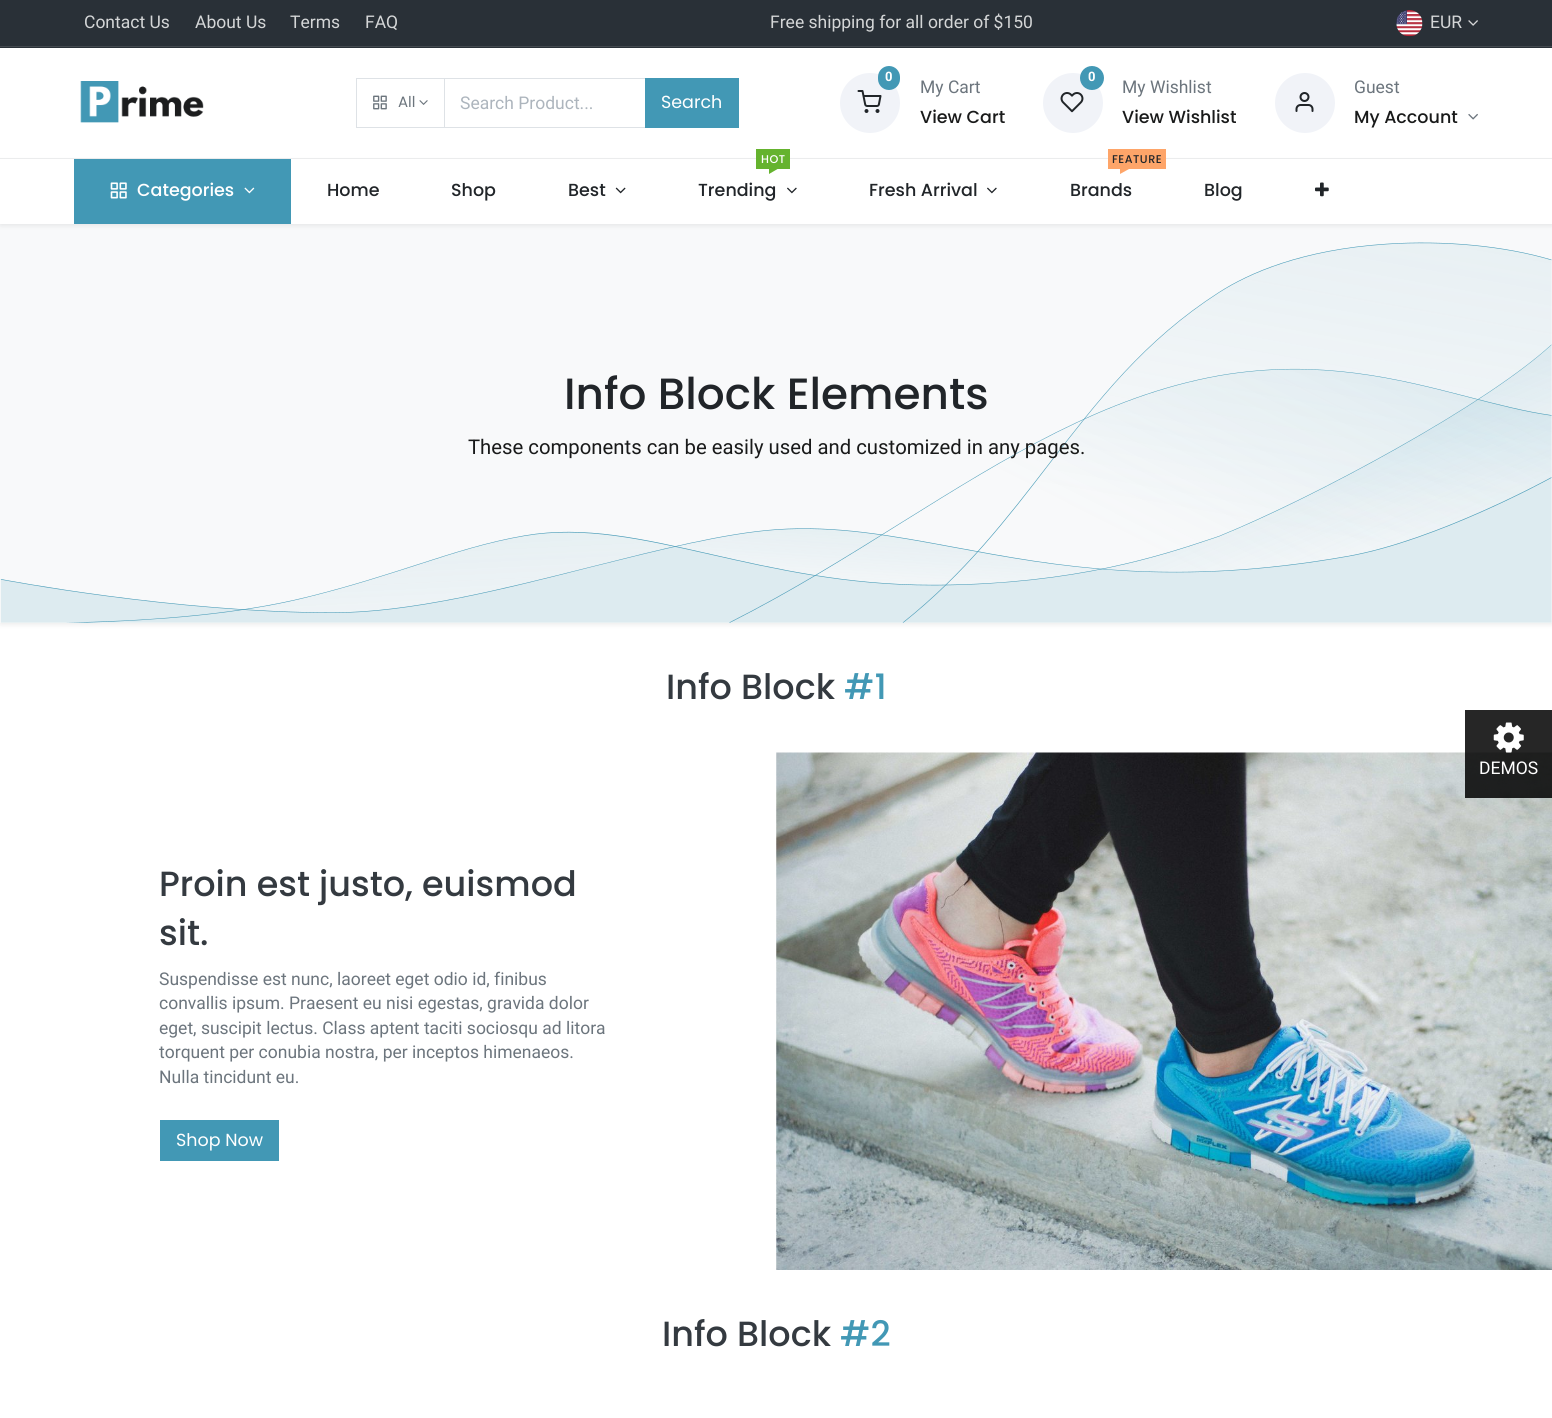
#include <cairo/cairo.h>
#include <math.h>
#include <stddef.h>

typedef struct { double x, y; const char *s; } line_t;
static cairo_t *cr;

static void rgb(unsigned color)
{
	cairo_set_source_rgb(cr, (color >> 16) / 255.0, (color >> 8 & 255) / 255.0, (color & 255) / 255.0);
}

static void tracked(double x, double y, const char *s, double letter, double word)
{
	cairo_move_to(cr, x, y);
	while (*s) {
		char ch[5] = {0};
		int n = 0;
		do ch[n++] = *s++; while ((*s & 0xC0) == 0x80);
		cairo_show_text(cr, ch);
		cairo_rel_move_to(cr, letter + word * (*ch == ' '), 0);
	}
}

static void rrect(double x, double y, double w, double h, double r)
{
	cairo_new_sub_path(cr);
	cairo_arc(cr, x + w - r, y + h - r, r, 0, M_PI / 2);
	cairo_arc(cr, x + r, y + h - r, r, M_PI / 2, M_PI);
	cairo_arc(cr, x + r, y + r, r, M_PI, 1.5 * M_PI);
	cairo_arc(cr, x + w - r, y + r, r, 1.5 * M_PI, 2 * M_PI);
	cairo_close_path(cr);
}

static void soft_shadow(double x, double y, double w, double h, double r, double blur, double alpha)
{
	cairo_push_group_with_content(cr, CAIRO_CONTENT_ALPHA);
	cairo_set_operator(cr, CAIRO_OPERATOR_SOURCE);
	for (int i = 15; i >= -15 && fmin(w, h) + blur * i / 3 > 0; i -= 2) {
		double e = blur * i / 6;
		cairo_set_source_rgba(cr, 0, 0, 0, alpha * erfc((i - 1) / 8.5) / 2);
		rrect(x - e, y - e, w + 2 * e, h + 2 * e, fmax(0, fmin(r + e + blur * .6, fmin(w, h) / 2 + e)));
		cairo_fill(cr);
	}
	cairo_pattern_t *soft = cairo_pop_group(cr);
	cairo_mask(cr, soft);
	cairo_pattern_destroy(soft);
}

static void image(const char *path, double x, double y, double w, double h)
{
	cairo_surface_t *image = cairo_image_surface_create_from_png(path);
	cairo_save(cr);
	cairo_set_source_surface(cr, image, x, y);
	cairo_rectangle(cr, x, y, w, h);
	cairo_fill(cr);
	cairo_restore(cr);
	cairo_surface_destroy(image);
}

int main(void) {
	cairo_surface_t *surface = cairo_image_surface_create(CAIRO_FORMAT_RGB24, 1552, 1418);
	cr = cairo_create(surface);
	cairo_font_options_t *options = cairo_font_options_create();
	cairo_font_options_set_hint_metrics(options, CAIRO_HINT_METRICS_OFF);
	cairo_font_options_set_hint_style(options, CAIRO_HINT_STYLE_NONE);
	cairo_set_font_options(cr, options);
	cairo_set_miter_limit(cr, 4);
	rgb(0xffffff);
	cairo_paint(cr);
	rgb(0x293037);
	cairo_rectangle(cr, 0, 0, 1552, 48);
	cairo_fill(cr);
	rgb(0x43494f);
	cairo_rectangle(cr, 0, 46, 1552, 1);
	cairo_fill(cr);
	image("img/1.png", 1396, 10, 27, 27);
	image("img/2.png", 1468, 20, 10, 6);
	rgb(0xedeeef);
	cairo_rectangle(cr, 0, 158, 1552, 1);
	cairo_fill(cr);
	image("img/3.png", 80, 81, 124, 42);
	cairo_rectangle(cr, 444.5, 78.5, 201, 49);
	rgb(0xdee2e6);
	cairo_set_line_width(cr, 1);
	cairo_stroke(cr);
	cairo_rectangle(cr, 356.5, 78.5, 88, 49);
	cairo_stroke(cr);
	image("img/4.png", 373, 95, 14, 15);
	image("img/5.png", 419, 100, 9, 5);
	rgb(0x4298b5);
	cairo_rectangle(cr, 645, 78, 94, 50);
	cairo_fill(cr);
	rgb(0xf1f3f8);
	cairo_arc(cr, 870, 103, 30, 0, 2 * M_PI);
	cairo_fill(cr);
	rgb(0x4298b5);
	rrect(878, 66, 22, 24, 11);
	cairo_fill(cr);
	image("img/6.png", 857, 90, 25, 23);
	rgb(0xf1f3f8);
	cairo_arc(cr, 1073, 103, 30, 0, 2 * M_PI);
	cairo_fill(cr);
	rgb(0x4298b5);
	cairo_arc(cr, 1092, 78, 12, 0, 2 * M_PI);
	cairo_fill(cr);
	image("img/7.png", 1060, 92, 24, 21);
	rgb(0xf1f3f8);
	cairo_arc(cr, 1305, 103, 30, 0, 2 * M_PI);
	cairo_fill(cr);
	image("img/8.png", 1295, 92, 19, 20);
	image("img/9.png", 1468, 113, 10, 7);
	rgb(0x000000);
	soft_shadow(0, 226, 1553, 399, 0, 2.5, 0.07);
	rgb(0xf8f9fa);
	cairo_rectangle(cr, 0, 224, 1552, 399);
	cairo_fill(cr);
	rgb(0x000000);
	soft_shadow(0, 161, 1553, 65, 0, 2.5, 0.07);
	rgb(0xffffff);
	cairo_rectangle(cr, 0, 159, 1552, 65);
	cairo_fill(cr);
	rgb(0x4298b5);
	cairo_rectangle(cr, 74, 159, 217, 65);
	cairo_fill(cr);
	image("img/10.png", 110, 182, 17, 17);
	image("img/11.png", 244, 187, 11, 7);
	image("img/12.png", 615, 187, 11, 7);
	rgb(0x65b32e);
	cairo_rectangle(cr, 756, 149, 34, 20);
	cairo_fill(cr);
	cairo_new_path(cr);
	cairo_move_to(cr, 769, 169);
	cairo_line_to(cr, 777.5, 169);
	cairo_line_to(cr, 769, 174);
	cairo_close_path(cr);
	cairo_fill(cr);
	image("img/13.png", 787, 187, 10, 7);
	image("img/13.png", 987, 187, 10, 7);
	rgb(0xfea569);
	cairo_rectangle(cr, 1108, 149, 58, 20);
	cairo_fill(cr);
	cairo_new_path(cr);
	cairo_move_to(cr, 1120, 169);
	cairo_line_to(cr, 1129, 169);
	cairo_line_to(cr, 1120, 174);
	cairo_close_path(cr);
	cairo_fill(cr);
	image("img/14.png", 1315, 182, 14, 15);
	image("img/15.png", 0, 242, 1552, 381);
	rgb(0x4298b5);
	cairo_rectangle(cr, 160, 1120, 119, 41);
	cairo_fill(cr);
	image("img/16.png", 776, 752, 776, 518);
	cairo_set_source_rgba(cr, 0, 0, 0, 0.85);
	cairo_rectangle(cr, 1465, 710, 87, 88);
	cairo_fill(cr);
	image("img/17.png", 1493, 722, 31, 31);
	cairo_select_font_face(cr, "Roboto", CAIRO_FONT_SLANT_NORMAL, CAIRO_FONT_WEIGHT_NORMAL);
	cairo_set_font_size(cr, 17.5);
	rgb(0xd4d6d7);
	{
		static const line_t items[] = {
			{84, 28, "Contact Us"},
			{195, 28, "About Us"},
			{290, 28, "Terms"},
			{365, 28, "FAQ"},
			{770, 28, "Free shipping for all order of $150"},
			{1430, 28, "EUR"},
		};
		for (size_t i = 0; i < sizeof items / sizeof *items; i++) {
			cairo_move_to(cr, items[i].x, items[i].y);
			cairo_show_text(cr, items[i].s);
		}
	}
	cairo_select_font_face(cr, "Poppins", CAIRO_FONT_SLANT_NORMAL, CAIRO_FONT_WEIGHT_NORMAL);
	cairo_set_font_size(cr, 15);
	rgb(0x6c757d);
	cairo_move_to(cr, 398, 107);
	cairo_show_text(cr, "All");
	cairo_select_font_face(cr, "Roboto", CAIRO_FONT_SLANT_NORMAL, CAIRO_FONT_WEIGHT_NORMAL);
	cairo_set_font_size(cr, 17.5);
	rgb(0xadb5bd);
	cairo_move_to(cr, 460, 109);
	cairo_show_text(cr, "Search Product...");
	cairo_select_font_face(cr, "Poppins", CAIRO_FONT_SLANT_NORMAL, CAIRO_FONT_WEIGHT_NORMAL);
	rgb(0xffffff);
	cairo_move_to(cr, 661, 108);
	cairo_show_text(cr, "Search");
	cairo_select_font_face(cr, "Roboto", CAIRO_FONT_SLANT_NORMAL, CAIRO_FONT_WEIGHT_BOLD);
	cairo_set_font_size(cr, 13);
	cairo_move_to(cr, 885, 81);
	cairo_show_text(cr, "0");
	cairo_select_font_face(cr, "Roboto", CAIRO_FONT_SLANT_NORMAL, CAIRO_FONT_WEIGHT_NORMAL);
	cairo_set_font_size(cr, 17.5);
	rgb(0x6c757d);
	cairo_move_to(cr, 920, 93);
	cairo_show_text(cr, "My Cart");
	cairo_select_font_face(cr, "Poppins Medium", CAIRO_FONT_SLANT_NORMAL, CAIRO_FONT_WEIGHT_NORMAL);
	rgb(0x191a1a);
	cairo_move_to(cr, 920, 123);
	cairo_show_text(cr, "View Cart");
	cairo_select_font_face(cr, "Roboto", CAIRO_FONT_SLANT_NORMAL, CAIRO_FONT_WEIGHT_BOLD);
	cairo_set_font_size(cr, 13);
	rgb(0xffffff);
	cairo_move_to(cr, 1088, 81);
	cairo_show_text(cr, "0");
	cairo_select_font_face(cr, "Roboto", CAIRO_FONT_SLANT_NORMAL, CAIRO_FONT_WEIGHT_NORMAL);
	cairo_set_font_size(cr, 17.5);
	rgb(0x6c757d);
	cairo_move_to(cr, 1122, 93);
	cairo_show_text(cr, "My Wishlist");
	cairo_select_font_face(cr, "Poppins Medium", CAIRO_FONT_SLANT_NORMAL, CAIRO_FONT_WEIGHT_NORMAL);
	rgb(0x191a1a);
	cairo_move_to(cr, 1122, 123);
	cairo_show_text(cr, "View Wishlist");
	cairo_select_font_face(cr, "Roboto", CAIRO_FONT_SLANT_NORMAL, CAIRO_FONT_WEIGHT_NORMAL);
	rgb(0x6c757d);
	cairo_move_to(cr, 1354, 93);
	cairo_show_text(cr, "Guest");
	cairo_select_font_face(cr, "Poppins Medium", CAIRO_FONT_SLANT_NORMAL, CAIRO_FONT_WEIGHT_NORMAL);
	rgb(0x191a1a);
	cairo_move_to(cr, 1354, 123);
	cairo_show_text(cr, "My Account");
	rgb(0xffffff);
	cairo_move_to(cr, 137, 196);
	cairo_show_text(cr, "Categories");
	rgb(0x212529);
	{
		static const line_t items[] = {
			{327, 196, "Home"},
			{451, 196, "Shop"},
			{568, 196, "Best"},
		};
		for (size_t i = 0; i < sizeof items / sizeof *items; i++) {
			cairo_move_to(cr, items[i].x, items[i].y);
			cairo_show_text(cr, items[i].s);
		}
	}
	cairo_set_font_size(cr, 11.25);
	rgb(0xffffff);
	tracked(761, 163, "HOT", 0.5, 0);
	cairo_set_font_size(cr, 17.5);
	rgb(0x212529);
	cairo_move_to(cr, 698, 196);
	cairo_show_text(cr, "Trending");
	cairo_move_to(cr, 869, 196);
	cairo_show_text(cr, "Fresh Arrival");
	cairo_set_font_size(cr, 11.25);
	tracked(1112, 163, "FEATURE", 0.5, 0);
	cairo_set_font_size(cr, 17.5);
	cairo_move_to(cr, 1070, 196);
	cairo_show_text(cr, "Brands");
	cairo_move_to(cr, 1204, 196);
	cairo_show_text(cr, "Blog");
	cairo_set_font_size(cr, 43.75);
	cairo_move_to(cr, 564, 409);
	cairo_show_text(cr, "Info Block Elements");
	cairo_select_font_face(cr, "Roboto", CAIRO_FONT_SLANT_NORMAL, CAIRO_FONT_WEIGHT_NORMAL);
	cairo_set_font_size(cr, 20.3);
	rgb(0x191a1a);
	cairo_move_to(cr, 468, 454);
	cairo_show_text(cr, "These components can be easily used and customized in any pages.");
	cairo_select_font_face(cr, "Poppins Medium", CAIRO_FONT_SLANT_NORMAL, CAIRO_FONT_WEIGHT_NORMAL);
	cairo_set_font_size(cr, 35);
	rgb(0x343a40);
	cairo_move_to(cr, 666, 699);
	cairo_show_text(cr, "Info Block");
	rgb(0x4298b5);
	cairo_move_to(cr, 844, 699);
	cairo_show_text(cr, "#1");
	rgb(0x343a40);
	cairo_move_to(cr, 159, 896);
	cairo_show_text(cr, "Proin est justo, euismod");
	cairo_move_to(cr, 159, 945);
	cairo_show_text(cr, "sit.");
	cairo_select_font_face(cr, "Roboto", CAIRO_FONT_SLANT_NORMAL, CAIRO_FONT_WEIGHT_NORMAL);
	cairo_set_font_size(cr, 17.5);
	rgb(0x6c757d);
	{
		static const line_t items[] = {
			{159, 985, "Suspendisse est nunc, laoreet eget odio id, finibus"},
			{159, 1009, "convallis ipsum. Praesent eu nisi egestas, gravida dolor"},
			{159, 1034, "eget, suscipit lectus. Class aptent taciti sociosqu ad litora"},
			{159, 1058, "torquent per conubia nostra, per inceptos himenaeos."},
			{159, 1083, "Nulla tincidunt eu."},
		};
		for (size_t i = 0; i < sizeof items / sizeof *items; i++) {
			cairo_move_to(cr, items[i].x, items[i].y);
			cairo_show_text(cr, items[i].s);
		}
	}
	cairo_select_font_face(cr, "Poppins", CAIRO_FONT_SLANT_NORMAL, CAIRO_FONT_WEIGHT_NORMAL);
	rgb(0xffffff);
	cairo_move_to(cr, 176, 1146);
	cairo_show_text(cr, "Shop Now");
	cairo_select_font_face(cr, "Poppins Medium", CAIRO_FONT_SLANT_NORMAL, CAIRO_FONT_WEIGHT_NORMAL);
	cairo_set_font_size(cr, 35);
	rgb(0x343a40);
	cairo_move_to(cr, 662, 1346);
	cairo_show_text(cr, "Info Block");
	rgb(0x4298b5);
	cairo_move_to(cr, 840, 1346);
	cairo_show_text(cr, "#2");
	cairo_select_font_face(cr, "Roboto", CAIRO_FONT_SLANT_NORMAL, CAIRO_FONT_WEIGHT_NORMAL);
	cairo_set_font_size(cr, 17.5);
	rgb(0xffffff);
	cairo_move_to(cr, 1479, 774);
	cairo_show_text(cr, "DEMOS");
	cairo_surface_write_to_png(surface, "page.png");
	cairo_font_options_destroy(options);
	cairo_destroy(cr);
	cairo_surface_destroy(surface);
	return 0;
}
